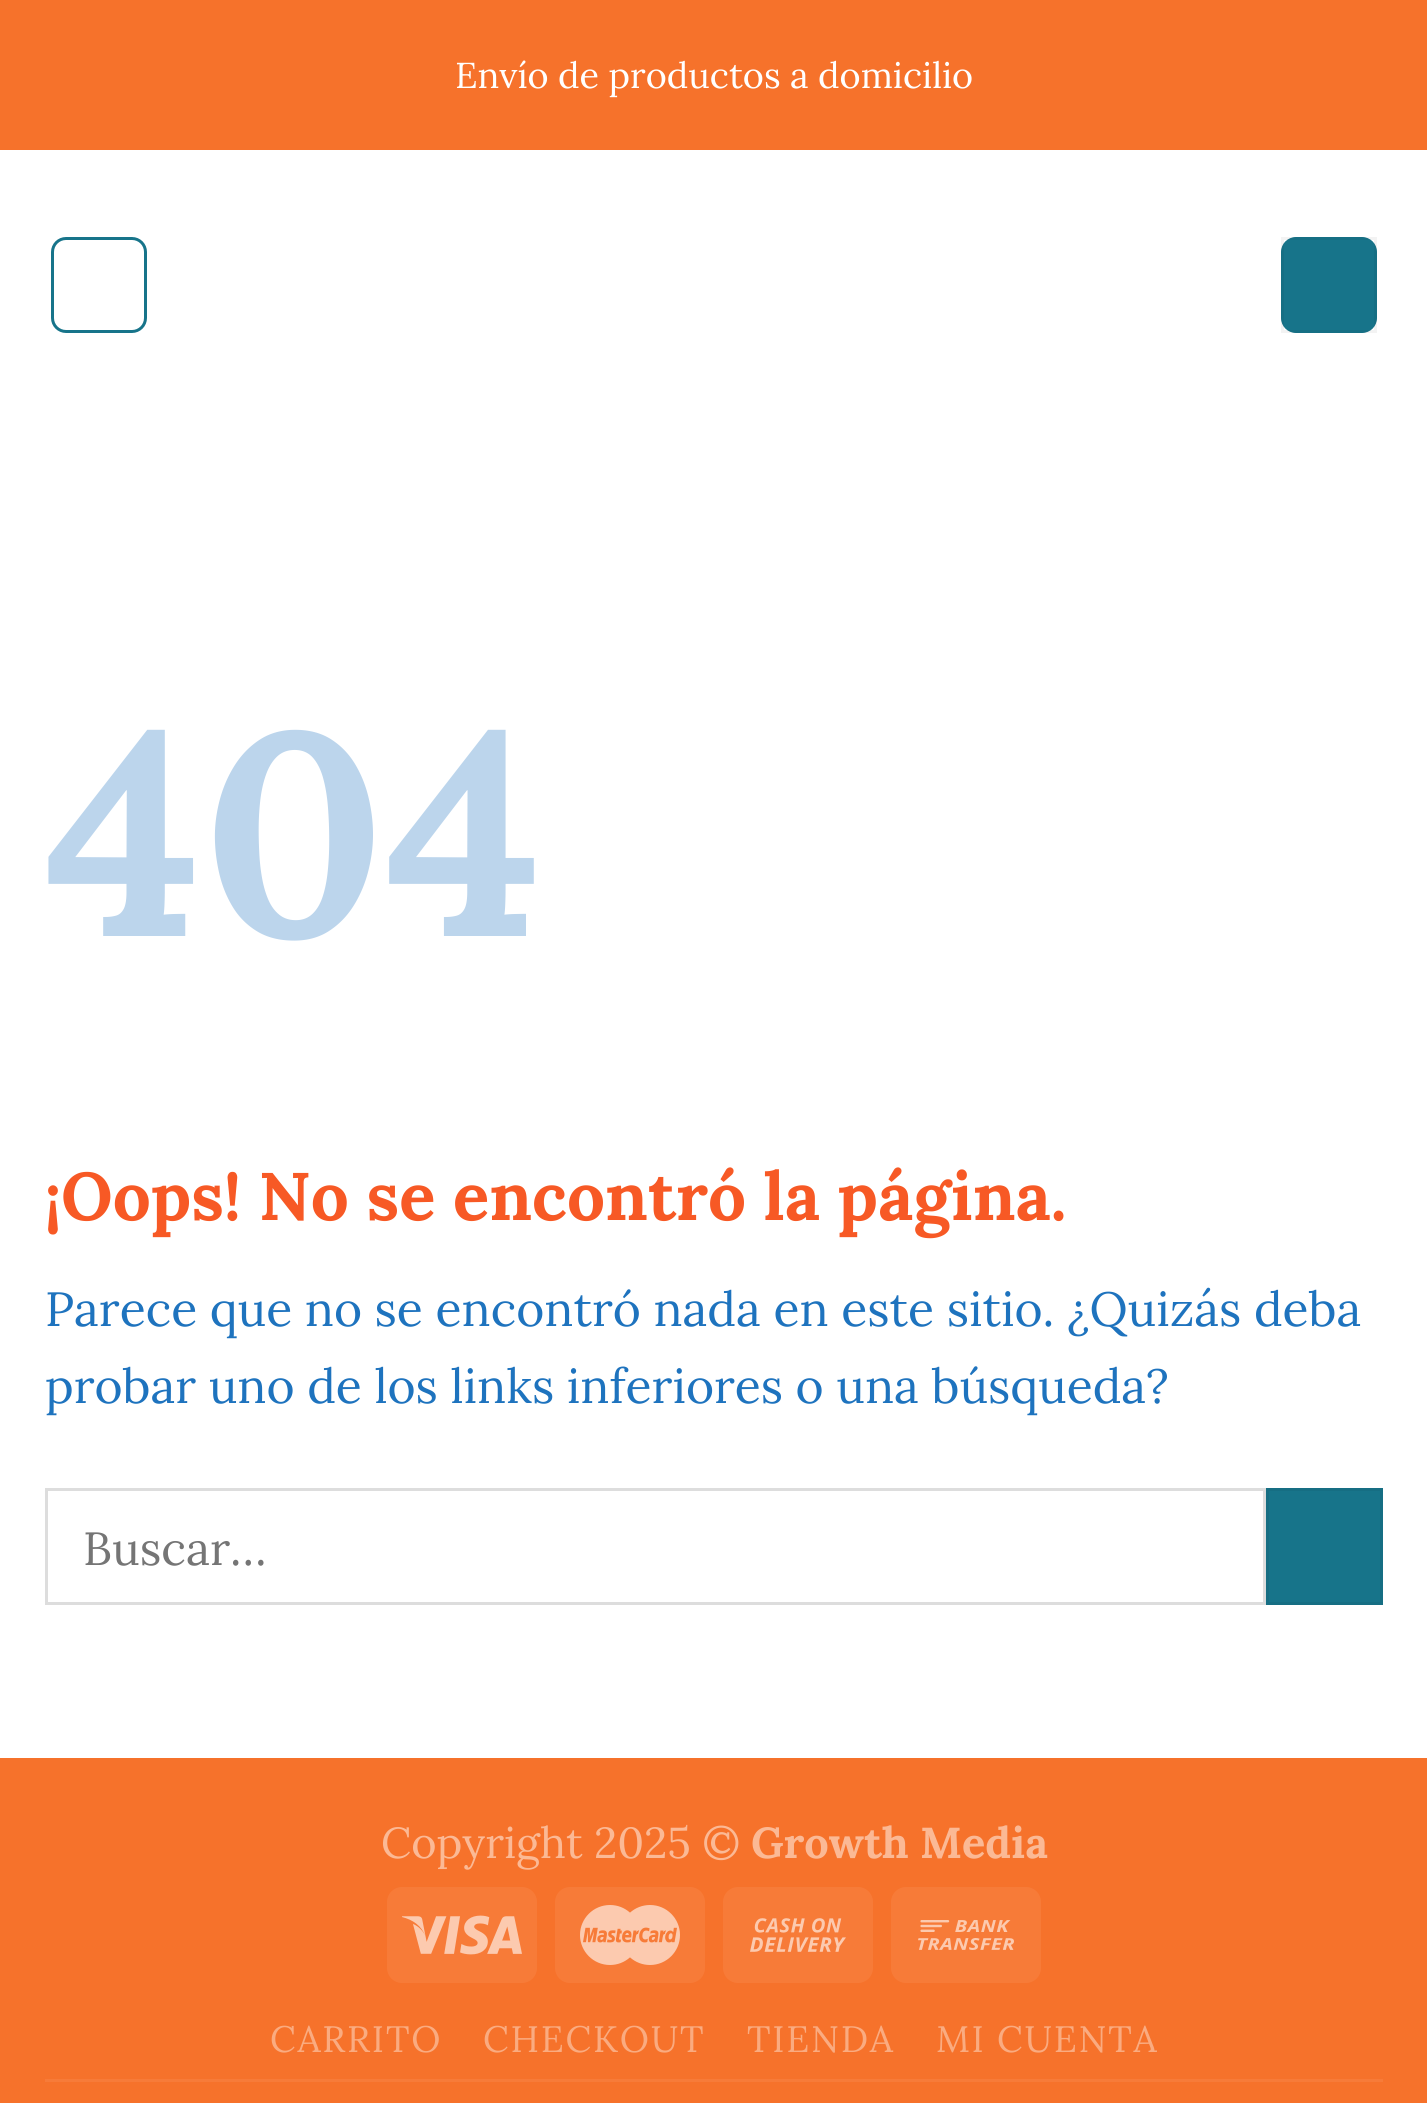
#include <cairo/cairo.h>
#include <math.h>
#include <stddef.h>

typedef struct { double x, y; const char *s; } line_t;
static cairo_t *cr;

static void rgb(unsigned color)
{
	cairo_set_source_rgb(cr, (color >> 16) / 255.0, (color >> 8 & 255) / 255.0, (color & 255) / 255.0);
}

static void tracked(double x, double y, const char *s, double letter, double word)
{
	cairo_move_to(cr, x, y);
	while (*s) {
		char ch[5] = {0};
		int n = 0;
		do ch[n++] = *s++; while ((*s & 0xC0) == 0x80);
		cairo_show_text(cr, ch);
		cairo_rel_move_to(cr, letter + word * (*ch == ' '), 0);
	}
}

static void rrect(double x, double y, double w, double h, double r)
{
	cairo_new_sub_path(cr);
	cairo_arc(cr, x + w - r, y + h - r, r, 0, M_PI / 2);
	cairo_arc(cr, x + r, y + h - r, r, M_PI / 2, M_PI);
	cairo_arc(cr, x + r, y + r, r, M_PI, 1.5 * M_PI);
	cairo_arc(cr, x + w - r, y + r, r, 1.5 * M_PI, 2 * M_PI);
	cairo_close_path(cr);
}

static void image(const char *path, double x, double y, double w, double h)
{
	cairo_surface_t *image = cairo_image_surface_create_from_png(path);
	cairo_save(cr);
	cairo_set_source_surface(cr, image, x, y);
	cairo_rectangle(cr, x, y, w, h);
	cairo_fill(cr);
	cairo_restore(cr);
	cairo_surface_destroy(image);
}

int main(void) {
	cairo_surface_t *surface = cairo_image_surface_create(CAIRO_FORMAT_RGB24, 1427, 2103);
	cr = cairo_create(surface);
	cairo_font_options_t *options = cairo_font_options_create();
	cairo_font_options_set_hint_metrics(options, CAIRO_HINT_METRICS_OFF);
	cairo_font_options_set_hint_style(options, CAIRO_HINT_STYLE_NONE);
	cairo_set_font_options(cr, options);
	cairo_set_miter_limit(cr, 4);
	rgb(0xffffff);
	cairo_paint(cr);
	rgb(0xf6722b);
	cairo_rectangle(cr, 0, 0, 1427, 150);
	cairo_fill(cr);
	rrect(52.5, 238.5, 93, 93, 13.5);
	rgb(0x17748a);
	cairo_set_line_width(cr, 3);
	cairo_stroke(cr);
	rrect(1281, 237, 96, 96, 15);
	cairo_fill(cr);
	cairo_rectangle(cr, 1282.5, 238.5, 93, 93);
	cairo_set_source_rgba(cr, 0, 0, 0, 0.05);
	cairo_stroke(cr);
	cairo_rectangle(cr, 46.5, 1489.5, 1218, 114);
	rgb(0xdddddd);
	cairo_stroke(cr);
	rgb(0x17748a);
	cairo_rectangle(cr, 1267.5, 1489.5, 114, 114);
	cairo_fill_preserve(cr);
	rgb(0x166e83);
	cairo_stroke(cr);
	rgb(0xf6722b);
	cairo_rectangle(cr, 0, 1758, 1427, 345);
	cairo_fill(cr);
	rgb(0xf77b38);
	rrect(387, 1887, 150, 96, 15);
	cairo_fill(cr);
	image("img/1.png", 402, 1915, 120, 40);
	rrect(555, 1887, 150, 96, 15);
	cairo_fill(cr);
	image("img/2.png", 580, 1905, 100, 60);
	rrect(723, 1887, 150, 96, 15);
	cairo_fill(cr);
	image("img/3.png", 750, 1918, 96, 34);
	rrect(891, 1887, 150, 96, 15);
	cairo_fill(cr);
	image("img/4.png", 918, 1920, 96, 30);
	rgb(0xf77b39);
	cairo_rectangle(cr, 45, 2079, 1338, 3);
	cairo_fill(cr);
	cairo_select_font_face(cr, "Lora", CAIRO_FONT_SLANT_NORMAL, CAIRO_FONT_WEIGHT_NORMAL);
	cairo_set_font_size(cr, 36);
	rgb(0xffffff);
	cairo_move_to(cr, 455, 88);
	cairo_show_text(cr, "Envío de productos a domicilio");
	cairo_select_font_face(cr, "Lora", CAIRO_FONT_SLANT_NORMAL, CAIRO_FONT_WEIGHT_BOLD);
	cairo_set_font_size(cr, 288);
	rgb(0xbcd5ec);
	cairo_move_to(cr, 45, 936);
	cairo_show_text(cr, "404");
	cairo_set_font_size(cr, 67.25);
	rgb(0xf75925);
	cairo_move_to(cr, 45, 1220);
	cairo_show_text(cr, "¡Oops! No se encontró la página.");
	cairo_select_font_face(cr, "Lora", CAIRO_FONT_SLANT_NORMAL, CAIRO_FONT_WEIGHT_NORMAL);
	cairo_set_font_size(cr, 48);
	rgb(0x1e73be);
	cairo_move_to(cr, 45, 1326);
	cairo_show_text(cr, "Parece que no se encontró nada en este sitio. ¿Quizás deba");
	cairo_move_to(cr, 45, 1403);
	cairo_show_text(cr, "probar uno de los links inferiores o una búsqueda?");
	cairo_set_font_size(cr, 46.5);
	rgb(0x757575);
	cairo_move_to(cr, 83, 1565);
	cairo_show_text(cr, "Buscar…");
	cairo_set_font_size(cr, 43.25);
	rgb(0xfbb995);
	cairo_move_to(cr, 381, 1858);
	cairo_show_text(cr, "Copyright 2025 ©");
	cairo_select_font_face(cr, "Lora", CAIRO_FONT_SLANT_NORMAL, CAIRO_FONT_WEIGHT_BOLD);
	cairo_move_to(cr, 751, 1858);
	cairo_show_text(cr, "Growth Media");
	cairo_select_font_face(cr, "Lora", CAIRO_FONT_SLANT_NORMAL, CAIRO_FONT_WEIGHT_NORMAL);
	cairo_set_font_size(cr, 36.75);
	rgb(0xfaab80);
	{
		static const line_t items[] = {
			{270, 2052, "CARRITO"},
			{483, 2052, "CHECKOUT"},
			{747, 2052, "TIENDA"},
			{936, 2052, "MI CUENTA"},
		};
		for (size_t i = 0; i < sizeof items / sizeof *items; i++) {
			tracked(items[i].x, items[i].y, items[i].s, 1.75, 0);
		}
	}
	cairo_surface_write_to_png(surface, "page.png");
	cairo_font_options_destroy(options);
	cairo_destroy(cr);
	cairo_surface_destroy(surface);
	return 0;
}
